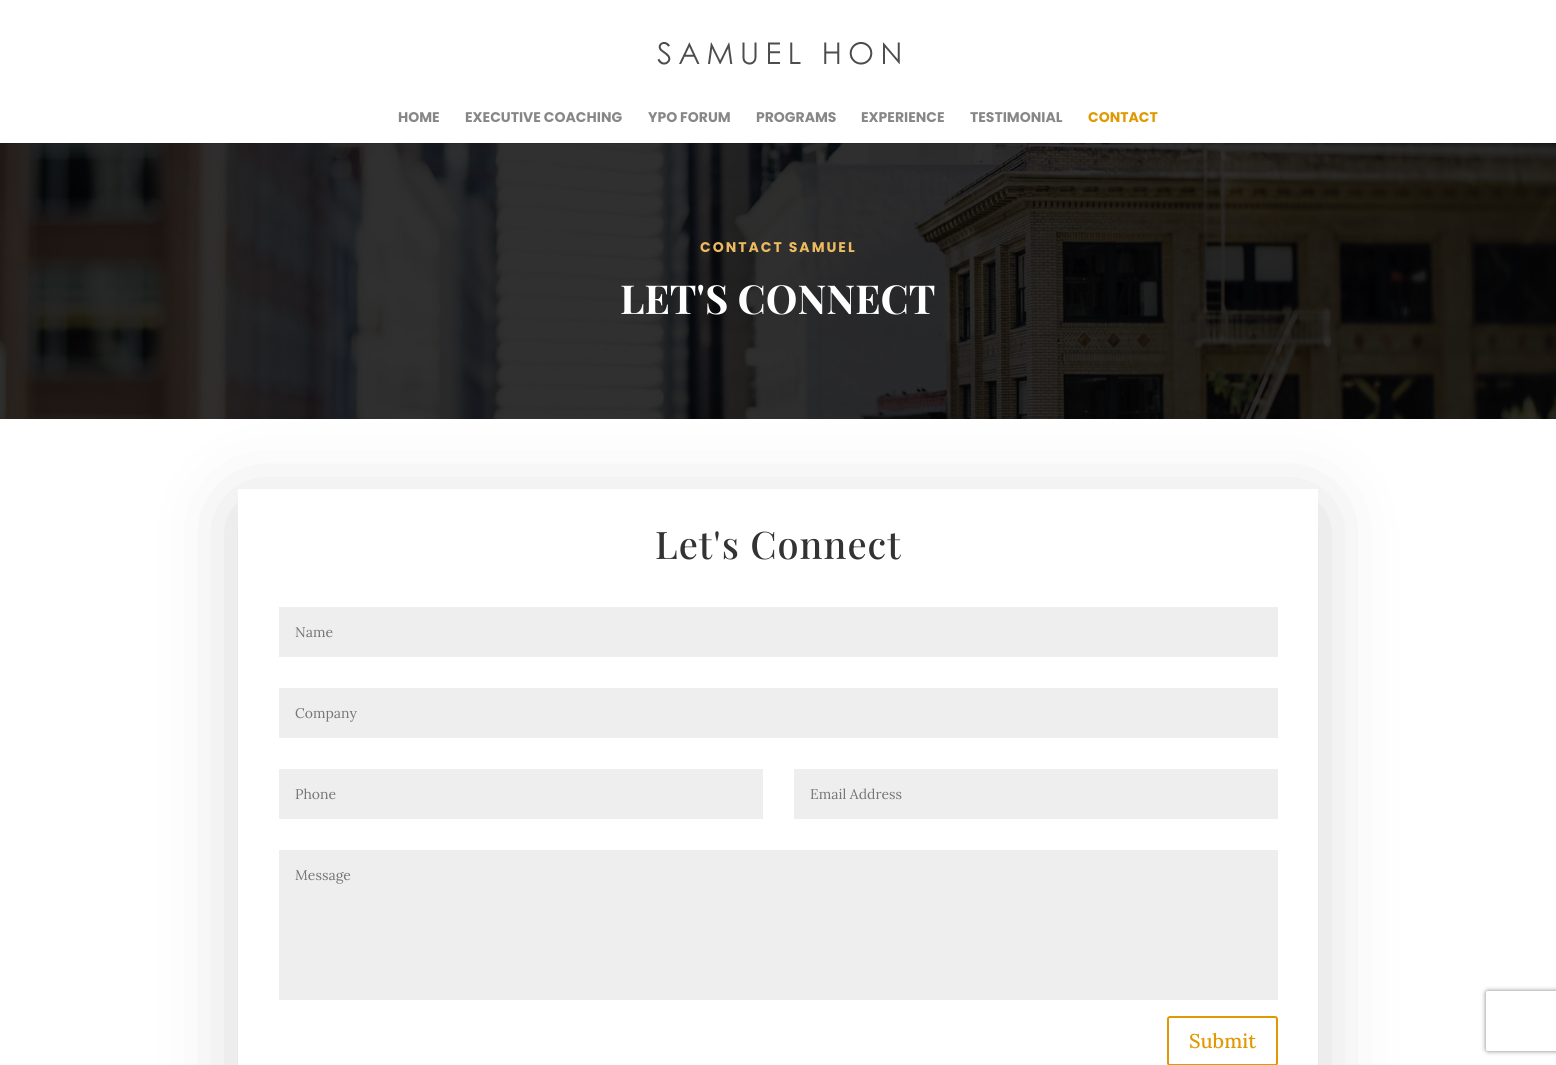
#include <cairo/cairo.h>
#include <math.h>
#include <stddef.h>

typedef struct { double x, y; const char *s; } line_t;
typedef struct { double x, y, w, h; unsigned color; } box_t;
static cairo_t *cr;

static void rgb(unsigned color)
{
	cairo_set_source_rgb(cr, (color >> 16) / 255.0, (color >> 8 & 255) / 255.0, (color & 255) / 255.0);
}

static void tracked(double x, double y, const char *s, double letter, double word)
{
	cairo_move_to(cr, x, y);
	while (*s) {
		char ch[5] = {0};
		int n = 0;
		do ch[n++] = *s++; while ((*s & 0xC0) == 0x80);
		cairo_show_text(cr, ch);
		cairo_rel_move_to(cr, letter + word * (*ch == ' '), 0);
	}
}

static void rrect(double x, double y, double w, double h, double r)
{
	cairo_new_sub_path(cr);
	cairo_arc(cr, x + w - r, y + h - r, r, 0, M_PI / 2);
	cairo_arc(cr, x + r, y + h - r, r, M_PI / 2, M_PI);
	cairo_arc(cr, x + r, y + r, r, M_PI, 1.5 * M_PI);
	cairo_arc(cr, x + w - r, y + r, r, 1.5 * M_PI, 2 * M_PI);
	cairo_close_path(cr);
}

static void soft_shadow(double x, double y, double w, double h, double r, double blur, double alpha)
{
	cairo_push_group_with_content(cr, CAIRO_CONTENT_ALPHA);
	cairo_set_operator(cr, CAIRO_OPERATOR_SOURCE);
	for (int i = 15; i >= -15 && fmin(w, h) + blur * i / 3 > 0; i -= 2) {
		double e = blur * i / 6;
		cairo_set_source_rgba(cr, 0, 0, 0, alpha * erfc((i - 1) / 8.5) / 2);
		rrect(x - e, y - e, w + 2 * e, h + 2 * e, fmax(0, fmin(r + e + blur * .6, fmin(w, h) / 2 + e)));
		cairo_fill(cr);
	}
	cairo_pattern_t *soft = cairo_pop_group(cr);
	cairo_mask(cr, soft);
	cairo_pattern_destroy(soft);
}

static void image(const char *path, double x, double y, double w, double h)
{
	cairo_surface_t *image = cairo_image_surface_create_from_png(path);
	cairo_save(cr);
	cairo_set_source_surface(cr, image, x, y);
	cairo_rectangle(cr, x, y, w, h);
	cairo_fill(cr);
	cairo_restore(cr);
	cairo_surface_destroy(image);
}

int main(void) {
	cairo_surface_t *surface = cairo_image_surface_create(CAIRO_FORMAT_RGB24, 1556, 1065);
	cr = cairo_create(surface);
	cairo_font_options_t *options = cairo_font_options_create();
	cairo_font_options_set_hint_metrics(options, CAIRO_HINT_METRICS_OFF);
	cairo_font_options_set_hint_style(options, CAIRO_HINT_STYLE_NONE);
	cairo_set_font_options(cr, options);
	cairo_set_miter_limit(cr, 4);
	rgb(0xffffff);
	cairo_paint(cr);
	image("img/2.png", 0, 143, 1556, 276);
	cairo_set_source_rgba(cr, 0, 0, 0, 0.1);
	cairo_rectangle(cr, 0, 143, 1556, 1);
	cairo_fill(cr);
	image("img/1.png", 657, 42, 243, 23);
	cairo_save(cr);
	cairo_set_fill_rule(cr, CAIRO_FILL_RULE_EVEN_ODD);
	cairo_new_path(cr);
	cairo_move_to(cr, 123, 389);
	cairo_line_to(cr, 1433, 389);
	cairo_line_to(cr, 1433, 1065);
	cairo_line_to(cr, 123, 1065);
	cairo_close_path(cr);
	cairo_move_to(cr, 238, 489);
	cairo_line_to(cr, 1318, 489);
	cairo_line_to(cr, 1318, 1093);
	cairo_line_to(cr, 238, 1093);
	cairo_close_path(cr);
	cairo_clip(cr);
	rgb(0x000000);
	soft_shadow(244, 510, 1068, 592, 0, 40, 0.2);
	cairo_restore(cr);
	{
		static const box_t items[] = {
			{279, 607, 999, 50, 0xeeeeee},
			{279, 688, 999, 50, 0xeeeeee},
			{279, 769, 484, 50, 0xeeeeee},
			{794, 769, 484, 50, 0xeeeeee},
			{279, 850, 999, 150, 0xeeeeee},
		};
		for (size_t i = 0; i < sizeof items / sizeof *items; i++) {
			rgb(items[i].color);
			cairo_rectangle(cr, items[i].x, items[i].y, items[i].w, items[i].h);
			cairo_fill(cr);
		}
	}
	rrect(1168, 1017, 109, 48, 2);
	rgb(0xe09900);
	cairo_stroke(cr);
	cairo_save(cr);
	cairo_set_fill_rule(cr, CAIRO_FILL_RULE_EVEN_ODD);
	cairo_new_path(cr);
	cairo_move_to(cr, 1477, 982);
	cairo_line_to(cr, 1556, 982);
	cairo_line_to(cr, 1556, 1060);
	cairo_line_to(cr, 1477, 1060);
	cairo_close_path(cr);
	cairo_move_to(cr, 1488, 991);
	cairo_line_to(cr, 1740, 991);
	cairo_curve_to(cr, 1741, 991, 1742, 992, 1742, 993);
	cairo_line_to(cr, 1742, 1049);
	cairo_curve_to(cr, 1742, 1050, 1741, 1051, 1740, 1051);
	cairo_line_to(cr, 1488, 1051);
	cairo_curve_to(cr, 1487, 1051, 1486, 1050, 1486, 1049);
	cairo_line_to(cr, 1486, 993);
	cairo_curve_to(cr, 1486, 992, 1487, 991, 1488, 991);
	cairo_close_path(cr);
	cairo_clip(cr);
	rgb(0x808080);
	soft_shadow(1486, 991, 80, 60, 2, 2.5, 1);
	cairo_restore(cr);
	cairo_select_font_face(cr, "Poppins", CAIRO_FONT_SLANT_NORMAL, CAIRO_FONT_WEIGHT_BOLD);
	cairo_set_font_size(cr, 14);
	rgb(0x878787);
	{
		static const line_t items[] = {
			{398, 122, "HOME"},
			{465, 122, "EXECUTIVE COACHING"},
			{648, 122, "YPO FORUM"},
			{756, 122, "PROGRAMS"},
			{861, 122, "EXPERIENCE"},
			{970, 122, "TESTIMONIAL"},
		};
		for (size_t i = 0; i < sizeof items / sizeof *items; i++) {
			cairo_move_to(cr, items[i].x, items[i].y);
			cairo_show_text(cr, items[i].s);
		}
	}
	rgb(0xe09900);
	cairo_move_to(cr, 1088, 122);
	cairo_show_text(cr, "CONTACT");
	rgb(0xedbb5f);
	tracked(700, 252, "CONTACT SAMUEL", 2, 0);
	cairo_select_font_face(cr, "Playfair Display", CAIRO_FONT_SLANT_NORMAL, CAIRO_FONT_WEIGHT_BOLD);
	cairo_set_font_size(cr, 40);
	rgb(0xffffff);
	cairo_move_to(cr, 620, 314);
	cairo_show_text(cr, "LET'S CONNECT");
	cairo_select_font_face(cr, "Playfair Display Medium", CAIRO_FONT_SLANT_NORMAL, CAIRO_FONT_WEIGHT_NORMAL);
	cairo_set_font_size(cr, 38);
	rgb(0x333333);
	tracked(655, 559, "Let's Connect", 1, 0);
	cairo_select_font_face(cr, "Lora", CAIRO_FONT_SLANT_NORMAL, CAIRO_FONT_WEIGHT_NORMAL);
	cairo_set_font_size(cr, 14);
	rgb(0x757575);
	{
		static const line_t items[] = {
			{295, 637, "Name"},
			{295, 718, "Company"},
			{295, 799, "Phone"},
			{810, 799, "Email Address"},
			{295, 880, "Message"},
		};
		for (size_t i = 0; i < sizeof items / sizeof *items; i++) {
			cairo_move_to(cr, items[i].x, items[i].y);
			cairo_show_text(cr, items[i].s);
		}
	}
	cairo_select_font_face(cr, "Lora Medium", CAIRO_FONT_SLANT_NORMAL, CAIRO_FONT_WEIGHT_NORMAL);
	cairo_set_font_size(cr, 20);
	rgb(0xe09900);
	cairo_move_to(cr, 1189, 1048);
	cairo_show_text(cr, "Submit");
	cairo_surface_write_to_png(surface, "page.png");
	cairo_font_options_destroy(options);
	cairo_destroy(cr);
	cairo_surface_destroy(surface);
	return 0;
}
